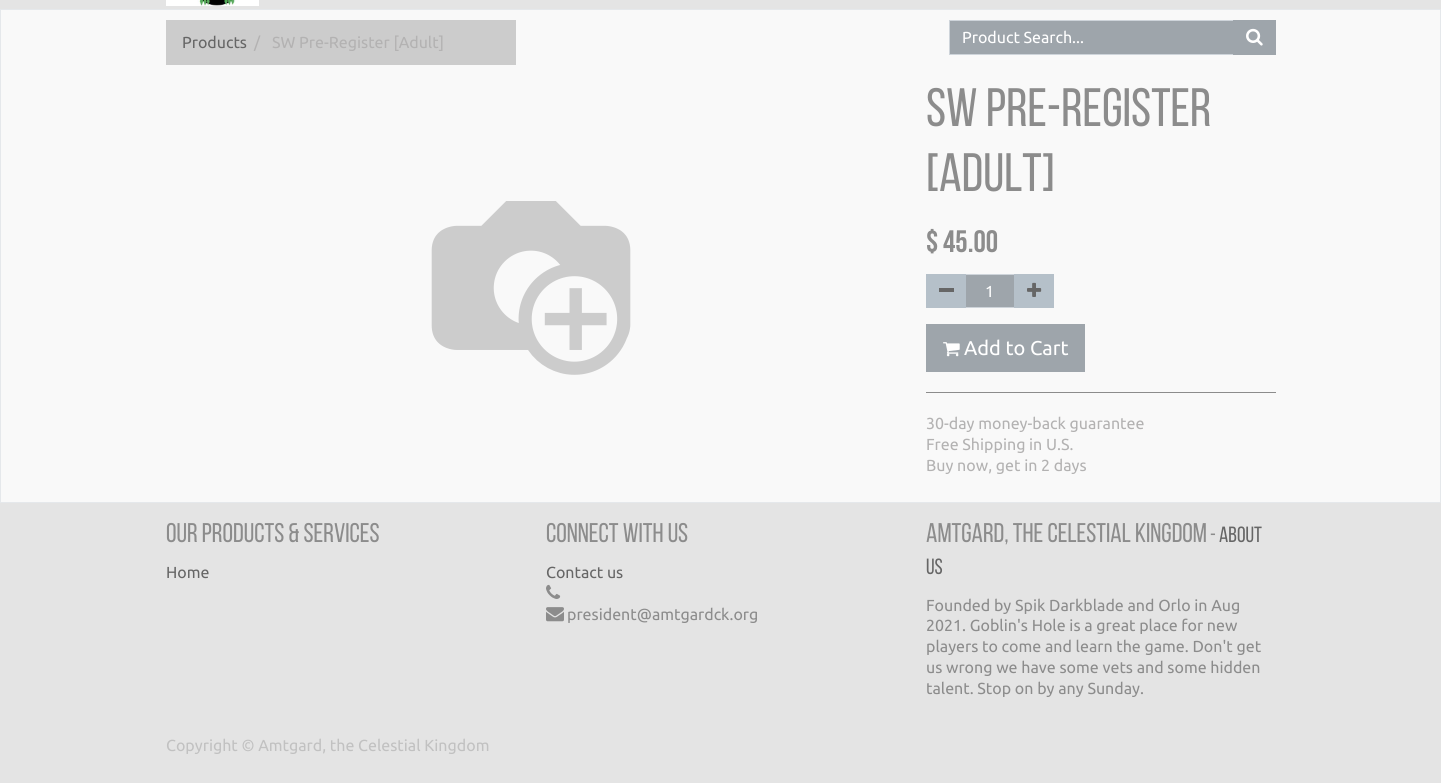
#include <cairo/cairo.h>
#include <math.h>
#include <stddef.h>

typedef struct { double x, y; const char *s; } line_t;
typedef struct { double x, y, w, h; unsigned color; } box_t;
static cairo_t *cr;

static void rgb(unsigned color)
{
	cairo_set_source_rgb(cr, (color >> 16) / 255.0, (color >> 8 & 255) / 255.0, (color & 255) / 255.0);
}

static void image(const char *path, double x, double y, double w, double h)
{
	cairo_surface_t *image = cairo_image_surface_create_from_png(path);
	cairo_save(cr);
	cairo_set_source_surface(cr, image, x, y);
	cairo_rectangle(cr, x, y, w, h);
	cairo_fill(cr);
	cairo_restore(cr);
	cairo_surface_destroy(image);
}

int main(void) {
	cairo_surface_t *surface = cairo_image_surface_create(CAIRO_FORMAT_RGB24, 1441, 783);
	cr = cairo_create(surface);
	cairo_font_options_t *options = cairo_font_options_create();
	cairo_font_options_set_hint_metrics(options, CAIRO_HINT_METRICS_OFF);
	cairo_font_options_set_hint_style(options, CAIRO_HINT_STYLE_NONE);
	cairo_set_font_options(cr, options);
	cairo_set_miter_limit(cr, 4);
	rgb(0xe4e4e4);
	cairo_paint(cr);
	image("img/1.png", 166, 0, 93, 6);
	rgb(0xf9f9f9);
	cairo_rectangle(cr, 0.5, 9.5, 1440, 493);
	cairo_fill_preserve(cr);
	rgb(0xe5e8eb);
	cairo_set_line_width(cr, 1);
	cairo_stroke(cr);
	rgb(0xcccccc);
	cairo_rectangle(cr, 166, 20, 350, 45);
	cairo_fill(cr);
	rgb(0x9ea5ab);
	cairo_rectangle(cr, 949.5, 20.5, 284, 34);
	cairo_fill_preserve(cr);
	rgb(0xced4da);
	cairo_stroke(cr);
	rgb(0x9ea5ab);
	cairo_rectangle(cr, 1233, 20, 43, 35);
	cairo_fill(cr);
	image("img/2.png", 1246, 28, 17, 18);
	image("img/3.png", 431, 201, 200, 174);
	cairo_rectangle(cr, 965.5, 274.5, 49, 33);
	cairo_fill_preserve(cr);
	rgb(0xced4da);
	cairo_stroke(cr);
	{
		static const box_t items[] = {
			{926, 274, 40, 34, 0xb5c0c9},
			{939, 288, 15, 4, 0x666666},
			{1014, 274, 40, 34, 0xb5c0c9},
		};
		for (size_t i = 0; i < sizeof items / sizeof *items; i++) {
			rgb(items[i].color);
			cairo_rectangle(cr, items[i].x, items[i].y, items[i].w, items[i].h);
			cairo_fill(cr);
		}
	}
	image("img/4.png", 1027, 282, 15, 15);
	rgb(0x9ea5ab);
	cairo_rectangle(cr, 926, 324, 159, 48);
	cairo_fill(cr);
	image("img/5.png", 943, 342, 17, 15);
	rgb(0x8c8c8c);
	cairo_rectangle(cr, 926, 392, 350, 1);
	cairo_fill(cr);
	image("img/6.png", 546, 584, 15, 15);
	image("img/7.png", 546, 607, 18, 15);
	cairo_select_font_face(cr, "Ubuntu", CAIRO_FONT_SLANT_NORMAL, CAIRO_FONT_WEIGHT_NORMAL);
	cairo_set_font_size(cr, 16);
	rgb(0x666666);
	cairo_move_to(cr, 182, 48);
	cairo_show_text(cr, "Products");
	rgb(0xb3b2b2);
	cairo_move_to(cr, 254, 48);
	cairo_show_text(cr, "/");
	cairo_move_to(cr, 272, 48);
	cairo_show_text(cr, "SW Pre-Register [Adult]");
	rgb(0xffffff);
	cairo_move_to(cr, 962, 43);
	cairo_show_text(cr, "Product Search...");
	cairo_select_font_face(cr, "Bebas Neue", CAIRO_FONT_SLANT_NORMAL, CAIRO_FONT_WEIGHT_NORMAL);
	cairo_set_font_size(cr, 54);
	rgb(0x8c8c8c);
	cairo_move_to(cr, 926, 126);
	cairo_show_text(cr, "SW Pre-Register");
	cairo_move_to(cr, 926, 191);
	cairo_show_text(cr, "[Adult]");
	cairo_select_font_face(cr, "Bebas Neue", CAIRO_FONT_SLANT_NORMAL, CAIRO_FONT_WEIGHT_BOLD);
	cairo_set_font_size(cr, 31);
	cairo_move_to(cr, 926, 252);
	cairo_show_text(cr, "$ 45.00");
	cairo_select_font_face(cr, "Ubuntu", CAIRO_FONT_SLANT_NORMAL, CAIRO_FONT_WEIGHT_NORMAL);
	cairo_set_font_size(cr, 16);
	rgb(0xffffff);
	cairo_move_to(cr, 985, 297);
	cairo_show_text(cr, "1");
	cairo_set_font_size(cr, 20);
	cairo_move_to(cr, 964, 355);
	cairo_show_text(cr, "Add to Cart");
	cairo_set_font_size(cr, 16);
	rgb(0xb3b2b2);
	{
		static const line_t items[] = {
			{926, 429, "30-day money-back guarantee"},
			{926, 450, "Free Shipping in U.S."},
			{926, 471, "Buy now, get in 2 days"},
		};
		for (size_t i = 0; i < sizeof items / sizeof *items; i++) {
			cairo_move_to(cr, items[i].x, items[i].y);
			cairo_show_text(cr, items[i].s);
		}
	}
	cairo_select_font_face(cr, "Bebas Neue", CAIRO_FONT_SLANT_NORMAL, CAIRO_FONT_WEIGHT_NORMAL);
	cairo_set_font_size(cr, 27);
	rgb(0x8c8c8c);
	cairo_move_to(cr, 166, 542);
	cairo_show_text(cr, "Our Products & Services");
	cairo_select_font_face(cr, "Ubuntu", CAIRO_FONT_SLANT_NORMAL, CAIRO_FONT_WEIGHT_NORMAL);
	cairo_set_font_size(cr, 16);
	rgb(0x666666);
	cairo_move_to(cr, 166, 578);
	cairo_show_text(cr, "Home");
	cairo_select_font_face(cr, "Bebas Neue", CAIRO_FONT_SLANT_NORMAL, CAIRO_FONT_WEIGHT_NORMAL);
	cairo_set_font_size(cr, 27);
	rgb(0x8c8c8c);
	cairo_move_to(cr, 546, 542);
	cairo_show_text(cr, "Connect with us");
	cairo_select_font_face(cr, "Ubuntu", CAIRO_FONT_SLANT_NORMAL, CAIRO_FONT_WEIGHT_NORMAL);
	cairo_set_font_size(cr, 16);
	rgb(0x666666);
	cairo_move_to(cr, 546, 578);
	cairo_show_text(cr, "Contact us");
	rgb(0x8c8c8c);
	cairo_move_to(cr, 567, 620);
	cairo_show_text(cr, "president@amtgardck.org");
	cairo_select_font_face(cr, "Bebas Neue", CAIRO_FONT_SLANT_NORMAL, CAIRO_FONT_WEIGHT_NORMAL);
	cairo_set_font_size(cr, 27);
	cairo_move_to(cr, 926, 542);
	cairo_show_text(cr, "Amtgard, the Celestial Kingdom");
	cairo_set_font_size(cr, 22);
	cairo_move_to(cr, 1210, 542);
	cairo_show_text(cr, "-");
	rgb(0x666666);
	cairo_move_to(cr, 1219, 542);
	cairo_show_text(cr, "About");
	cairo_move_to(cr, 926, 574);
	cairo_show_text(cr, "us");
	cairo_select_font_face(cr, "Ubuntu", CAIRO_FONT_SLANT_NORMAL, CAIRO_FONT_WEIGHT_NORMAL);
	cairo_set_font_size(cr, 16);
	rgb(0x8c8c8c);
	{
		static const line_t items[] = {
			{926, 611, "Founded by Spik Darkblade and Orlo in Aug"},
			{926, 631, "2021. Goblin's Hole is a great place for new"},
			{926, 652, "players to come and learn the game. Don't get"},
			{926, 673, "us wrong we have some vets and some hidden"},
			{926, 694, "talent. Stop on by any Sunday."},
		};
		for (size_t i = 0; i < sizeof items / sizeof *items; i++) {
			cairo_move_to(cr, items[i].x, items[i].y);
			cairo_show_text(cr, items[i].s);
		}
	}
	rgb(0xc1c1c1);
	cairo_move_to(cr, 166, 751);
	cairo_show_text(cr, "Copyright © Amtgard, the Celestial Kingdom");
	cairo_surface_write_to_png(surface, "page.png");
	cairo_font_options_destroy(options);
	cairo_destroy(cr);
	cairo_surface_destroy(surface);
	return 0;
}
